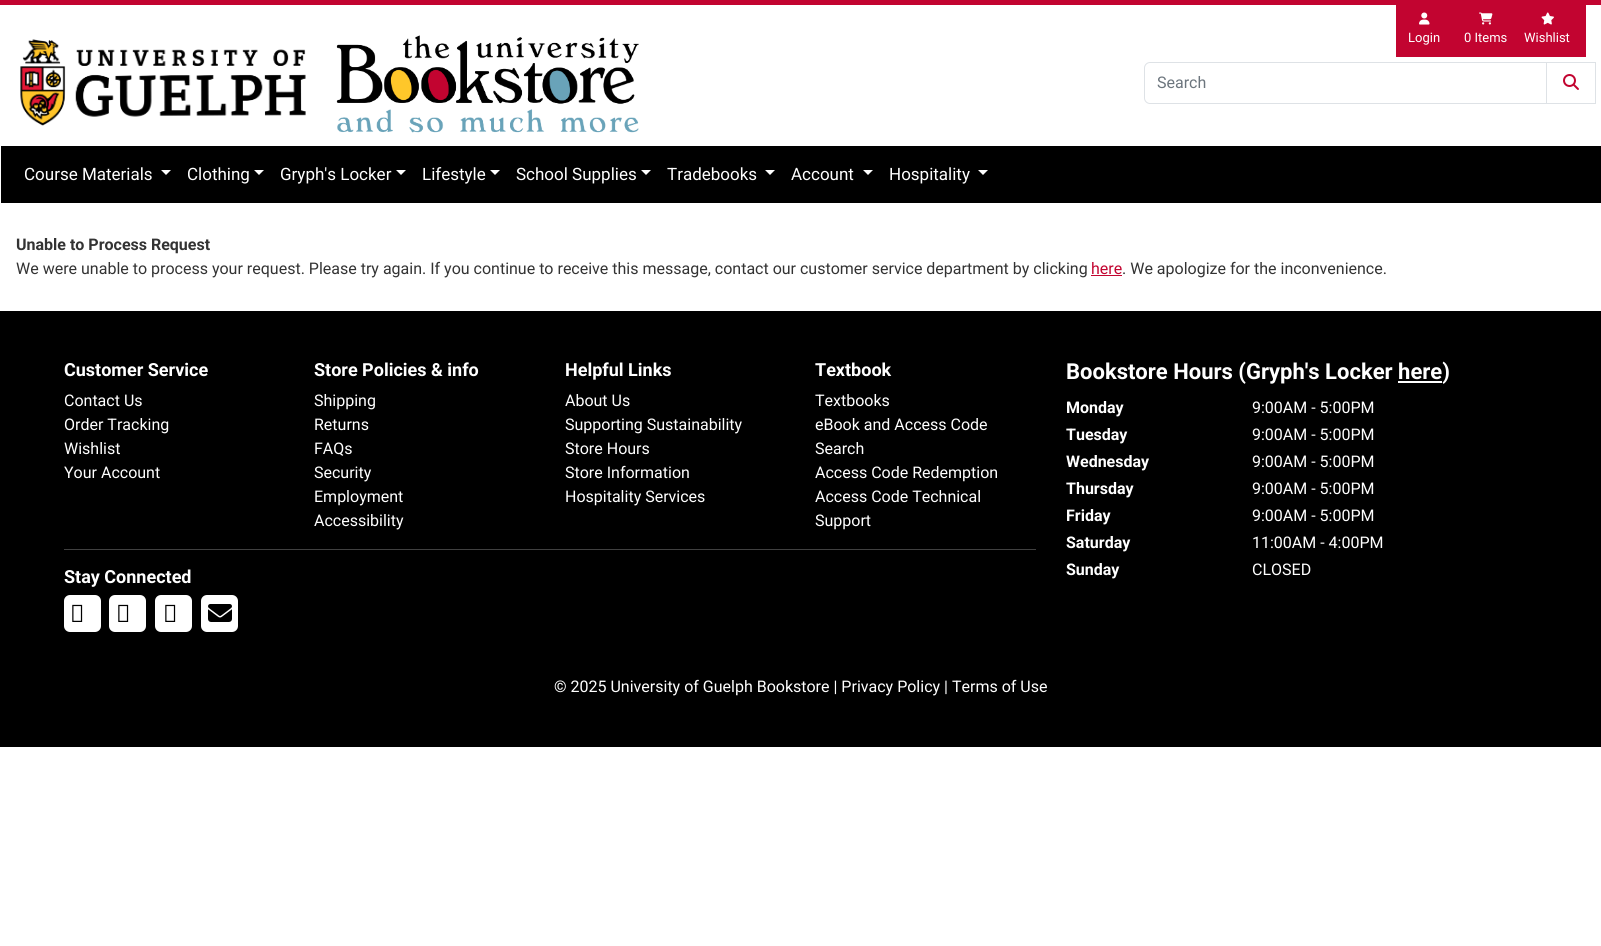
#include <cairo/cairo.h>
#include <math.h>
#include <stddef.h>

typedef struct { double x, y; const char *s; } line_t;
typedef struct { double x, y, w, h; unsigned color; } box_t;
static cairo_t *cr;

static void rgb(unsigned color)
{
	cairo_set_source_rgb(cr, (color >> 16) / 255.0, (color >> 8 & 255) / 255.0, (color & 255) / 255.0);
}

static void rrect(double x, double y, double w, double h, double r)
{
	cairo_new_sub_path(cr);
	cairo_arc(cr, x + w - r, y + h - r, r, 0, M_PI / 2);
	cairo_arc(cr, x + r, y + h - r, r, M_PI / 2, M_PI);
	cairo_arc(cr, x + r, y + r, r, M_PI, 1.5 * M_PI);
	cairo_arc(cr, x + w - r, y + r, r, 1.5 * M_PI, 2 * M_PI);
	cairo_close_path(cr);
}

static void image(const char *path, double x, double y, double w, double h)
{
	cairo_surface_t *image = cairo_image_surface_create_from_png(path);
	cairo_save(cr);
	cairo_set_source_surface(cr, image, x, y);
	cairo_rectangle(cr, x, y, w, h);
	cairo_fill(cr);
	cairo_restore(cr);
	cairo_surface_destroy(image);
}

int main(void) {
	cairo_surface_t *surface = cairo_image_surface_create(CAIRO_FORMAT_RGB24, 1601, 946);
	cr = cairo_create(surface);
	cairo_font_options_t *options = cairo_font_options_create();
	cairo_font_options_set_hint_metrics(options, CAIRO_HINT_METRICS_OFF);
	cairo_font_options_set_hint_style(options, CAIRO_HINT_STYLE_NONE);
	cairo_set_font_options(cr, options);
	cairo_set_miter_limit(cr, 4);
	rgb(0xffffff);
	cairo_paint(cr);
	rgb(0xc20430);
	cairo_rectangle(cr, 0, 0, 1601, 5);
	cairo_fill(cr);
	cairo_rectangle(cr, 1396, 5, 190, 52);
	cairo_fill(cr);
	image("img/1.png", 1419, 12, 11, 13);
	image("img/2.png", 1479, 12, 14, 13);
	image("img/3.png", 1541, 12, 13, 13);
	image("img/4.png", 20, 39, 286, 87);
	image("img/5.png", 336, 35, 303, 98);
	cairo_new_path(cr);
	cairo_move_to(cr, 1150, 62.5);
	cairo_line_to(cr, 1546.5, 62.5);
	cairo_line_to(cr, 1546.5, 103.5);
	cairo_line_to(cr, 1150, 103.5);
	cairo_curve_to(cr, 1147, 103.5, 1144.5, 101, 1144.5, 98);
	cairo_line_to(cr, 1144.5, 68);
	cairo_curve_to(cr, 1144.5, 65, 1147, 62.5, 1150, 62.5);
	cairo_close_path(cr);
	rgb(0xdee2e6);
	cairo_set_line_width(cr, 1);
	cairo_stroke(cr);
	cairo_rectangle(cr, 1546.5, 62.5, 49, 41);
	cairo_stroke(cr);
	image("img/6.png", 1563, 74, 16, 16);
	rgb(0x000000);
	cairo_rectangle(cr, 1, 146, 1600, 57);
	cairo_fill(cr);
	rgb(0xffffff);
	cairo_new_path(cr);
	cairo_move_to(cr, 161, 170);
	cairo_line_to(cr, 171, 170);
	cairo_line_to(cr, 166, 175);
	cairo_close_path(cr);
	cairo_fill(cr);
	cairo_new_path(cr);
	cairo_move_to(cr, 254, 170);
	cairo_line_to(cr, 264, 170);
	cairo_line_to(cr, 259, 175);
	cairo_close_path(cr);
	cairo_fill(cr);
	cairo_new_path(cr);
	cairo_move_to(cr, 396, 170);
	cairo_line_to(cr, 406, 170);
	cairo_line_to(cr, 401, 175);
	cairo_close_path(cr);
	cairo_fill(cr);
	cairo_new_path(cr);
	cairo_move_to(cr, 490, 170);
	cairo_line_to(cr, 500, 170);
	cairo_line_to(cr, 495, 175);
	cairo_close_path(cr);
	cairo_fill(cr);
	cairo_new_path(cr);
	cairo_move_to(cr, 641, 170);
	cairo_line_to(cr, 651, 170);
	cairo_line_to(cr, 646, 175);
	cairo_close_path(cr);
	cairo_fill(cr);
	cairo_new_path(cr);
	cairo_move_to(cr, 765, 170);
	cairo_line_to(cr, 775, 170);
	cairo_line_to(cr, 770, 175);
	cairo_close_path(cr);
	cairo_fill(cr);
	cairo_new_path(cr);
	cairo_move_to(cr, 863, 170);
	cairo_line_to(cr, 873, 170);
	cairo_line_to(cr, 868, 175);
	cairo_close_path(cr);
	cairo_fill(cr);
	cairo_new_path(cr);
	cairo_move_to(cr, 978, 170);
	cairo_line_to(cr, 988, 170);
	cairo_line_to(cr, 983, 175);
	cairo_close_path(cr);
	cairo_fill(cr);
	{
		static const box_t items[] = {
			{1091, 275, 31, 1, 0xc20430},
			{0, 311, 1601, 436, 0x000000},
			{64, 549, 972, 1, 0x404040},
		};
		for (size_t i = 0; i < sizeof items / sizeof *items; i++) {
			rgb(items[i].color);
			cairo_rectangle(cr, items[i].x, items[i].y, items[i].w, items[i].h);
			cairo_fill(cr);
		}
	}
	rgb(0xffffff);
	rrect(64, 595, 37, 37, 6);
	cairo_fill(cr);
	image("img/7.png", 72, 604, 11, 18);
	rrect(109, 595, 37, 37, 6);
	cairo_fill(cr);
	image("img/7.png", 118, 604, 11, 18);
	rrect(155, 595, 37, 37, 6);
	cairo_fill(cr);
	image("img/7.png", 165, 604, 11, 18);
	rrect(201, 595, 37, 37, 6);
	cairo_fill(cr);
	image("img/8.png", 208, 604, 24, 18);
	cairo_rectangle(cr, 1398, 381, 44, 2);
	cairo_fill(cr);
	cairo_select_font_face(cr, "Roboto", CAIRO_FONT_SLANT_NORMAL, CAIRO_FONT_WEIGHT_NORMAL);
	cairo_set_font_size(cr, 13);
	{
		static const line_t items[] = {
			{1408, 42, "Login"},
			{1464, 42, "0 Items"},
			{1524, 42, "Wishlist"},
		};
		for (size_t i = 0; i < sizeof items / sizeof *items; i++) {
			cairo_move_to(cr, items[i].x, items[i].y);
			cairo_show_text(cr, items[i].s);
		}
	}
	cairo_set_font_size(cr, 16);
	rgb(0x6c757d);
	cairo_move_to(cr, 1157, 88);
	cairo_show_text(cr, "Search");
	cairo_set_font_size(cr, 17);
	rgb(0xffffff);
	{
		static const line_t items[] = {
			{24, 180, "Course Materials"},
			{187, 180, "Clothing"},
			{280, 180, "Gryph's Locker"},
			{422, 180, "Lifestyle"},
			{516, 180, "School Supplies"},
			{667, 180, "Tradebooks"},
			{791, 180, "Account"},
			{889, 180, "Hospitality"},
		};
		for (size_t i = 0; i < sizeof items / sizeof *items; i++) {
			cairo_move_to(cr, items[i].x, items[i].y);
			cairo_show_text(cr, items[i].s);
		}
	}
	cairo_select_font_face(cr, "Roboto", CAIRO_FONT_SLANT_NORMAL, CAIRO_FONT_WEIGHT_BOLD);
	cairo_set_font_size(cr, 16);
	rgb(0x333333);
	cairo_move_to(cr, 16, 250);
	cairo_show_text(cr, "Unable to Process Request");
	cairo_select_font_face(cr, "Roboto", CAIRO_FONT_SLANT_NORMAL, CAIRO_FONT_WEIGHT_NORMAL);
	cairo_move_to(cr, 16, 274);
	cairo_show_text(cr, "We were unable to process your request. Please try again. If you continue to receive this message, contact our customer service department by clicking");
	rgb(0xc20430);
	cairo_move_to(cr, 1091, 274);
	cairo_show_text(cr, "here");
	rgb(0x333333);
	cairo_move_to(cr, 1122, 274);
	cairo_show_text(cr, ". We apologize for the inconvenience.");
	cairo_select_font_face(cr, "Roboto", CAIRO_FONT_SLANT_NORMAL, CAIRO_FONT_WEIGHT_BOLD);
	cairo_set_font_size(cr, 18);
	rgb(0xffffff);
	cairo_move_to(cr, 64, 376);
	cairo_show_text(cr, "Customer Service");
	cairo_select_font_face(cr, "Roboto", CAIRO_FONT_SLANT_NORMAL, CAIRO_FONT_WEIGHT_NORMAL);
	cairo_set_font_size(cr, 16);
	{
		static const line_t items[] = {
			{64, 406, "Contact Us"},
			{64, 430, "Order Tracking"},
			{64, 454, "Wishlist"},
			{64, 478, "Your Account"},
		};
		for (size_t i = 0; i < sizeof items / sizeof *items; i++) {
			cairo_move_to(cr, items[i].x, items[i].y);
			cairo_show_text(cr, items[i].s);
		}
	}
	cairo_select_font_face(cr, "Roboto", CAIRO_FONT_SLANT_NORMAL, CAIRO_FONT_WEIGHT_BOLD);
	cairo_set_font_size(cr, 18);
	cairo_move_to(cr, 314, 376);
	cairo_show_text(cr, "Store Policies & info");
	cairo_select_font_face(cr, "Roboto", CAIRO_FONT_SLANT_NORMAL, CAIRO_FONT_WEIGHT_NORMAL);
	cairo_set_font_size(cr, 16);
	{
		static const line_t items[] = {
			{314, 406, "Shipping"},
			{314, 430, "Returns"},
			{314, 454, "FAQs"},
			{314, 478, "Security"},
			{314, 502, "Employment"},
			{314, 526, "Accessibility"},
		};
		for (size_t i = 0; i < sizeof items / sizeof *items; i++) {
			cairo_move_to(cr, items[i].x, items[i].y);
			cairo_show_text(cr, items[i].s);
		}
	}
	cairo_select_font_face(cr, "Roboto", CAIRO_FONT_SLANT_NORMAL, CAIRO_FONT_WEIGHT_BOLD);
	cairo_set_font_size(cr, 18);
	cairo_move_to(cr, 565, 376);
	cairo_show_text(cr, "Helpful Links");
	cairo_select_font_face(cr, "Roboto", CAIRO_FONT_SLANT_NORMAL, CAIRO_FONT_WEIGHT_NORMAL);
	cairo_set_font_size(cr, 16);
	{
		static const line_t items[] = {
			{565, 406, "About Us"},
			{565, 430, "Supporting Sustainability"},
			{565, 454, "Store Hours"},
			{565, 478, "Store Information"},
			{565, 502, "Hospitality Services"},
		};
		for (size_t i = 0; i < sizeof items / sizeof *items; i++) {
			cairo_move_to(cr, items[i].x, items[i].y);
			cairo_show_text(cr, items[i].s);
		}
	}
	cairo_select_font_face(cr, "Roboto", CAIRO_FONT_SLANT_NORMAL, CAIRO_FONT_WEIGHT_BOLD);
	cairo_set_font_size(cr, 18);
	cairo_move_to(cr, 815, 376);
	cairo_show_text(cr, "Textbook");
	cairo_select_font_face(cr, "Roboto", CAIRO_FONT_SLANT_NORMAL, CAIRO_FONT_WEIGHT_NORMAL);
	cairo_set_font_size(cr, 16);
	{
		static const line_t items[] = {
			{815, 406, "Textbooks"},
			{815, 430, "eBook and Access Code"},
			{815, 454, "Search"},
			{815, 478, "Access Code Redemption"},
			{815, 502, "Access Code Technical"},
			{815, 526, "Support"},
		};
		for (size_t i = 0; i < sizeof items / sizeof *items; i++) {
			cairo_move_to(cr, items[i].x, items[i].y);
			cairo_show_text(cr, items[i].s);
		}
	}
	cairo_select_font_face(cr, "Roboto", CAIRO_FONT_SLANT_NORMAL, CAIRO_FONT_WEIGHT_BOLD);
	cairo_set_font_size(cr, 18);
	cairo_move_to(cr, 64, 583);
	cairo_show_text(cr, "Stay Connected");
	cairo_set_font_size(cr, 22);
	cairo_move_to(cr, 1066, 379);
	cairo_show_text(cr, "Bookstore Hours (Gryph's Locker here)");
	cairo_set_font_size(cr, 16);
	cairo_move_to(cr, 1066, 413);
	cairo_show_text(cr, "Monday");
	cairo_select_font_face(cr, "Roboto", CAIRO_FONT_SLANT_NORMAL, CAIRO_FONT_WEIGHT_NORMAL);
	cairo_move_to(cr, 1252, 413);
	cairo_show_text(cr, "9:00AM - 5:00PM");
	cairo_select_font_face(cr, "Roboto", CAIRO_FONT_SLANT_NORMAL, CAIRO_FONT_WEIGHT_BOLD);
	cairo_move_to(cr, 1066, 440);
	cairo_show_text(cr, "Tuesday");
	cairo_select_font_face(cr, "Roboto", CAIRO_FONT_SLANT_NORMAL, CAIRO_FONT_WEIGHT_NORMAL);
	cairo_move_to(cr, 1252, 440);
	cairo_show_text(cr, "9:00AM - 5:00PM");
	cairo_select_font_face(cr, "Roboto", CAIRO_FONT_SLANT_NORMAL, CAIRO_FONT_WEIGHT_BOLD);
	cairo_move_to(cr, 1066, 467);
	cairo_show_text(cr, "Wednesday");
	cairo_select_font_face(cr, "Roboto", CAIRO_FONT_SLANT_NORMAL, CAIRO_FONT_WEIGHT_NORMAL);
	cairo_move_to(cr, 1252, 467);
	cairo_show_text(cr, "9:00AM - 5:00PM");
	cairo_select_font_face(cr, "Roboto", CAIRO_FONT_SLANT_NORMAL, CAIRO_FONT_WEIGHT_BOLD);
	cairo_move_to(cr, 1066, 494);
	cairo_show_text(cr, "Thursday");
	cairo_select_font_face(cr, "Roboto", CAIRO_FONT_SLANT_NORMAL, CAIRO_FONT_WEIGHT_NORMAL);
	cairo_move_to(cr, 1252, 494);
	cairo_show_text(cr, "9:00AM - 5:00PM");
	cairo_select_font_face(cr, "Roboto", CAIRO_FONT_SLANT_NORMAL, CAIRO_FONT_WEIGHT_BOLD);
	cairo_move_to(cr, 1066, 521);
	cairo_show_text(cr, "Friday");
	cairo_select_font_face(cr, "Roboto", CAIRO_FONT_SLANT_NORMAL, CAIRO_FONT_WEIGHT_NORMAL);
	cairo_move_to(cr, 1252, 521);
	cairo_show_text(cr, "9:00AM - 5:00PM");
	cairo_select_font_face(cr, "Roboto", CAIRO_FONT_SLANT_NORMAL, CAIRO_FONT_WEIGHT_BOLD);
	cairo_move_to(cr, 1066, 548);
	cairo_show_text(cr, "Saturday");
	cairo_select_font_face(cr, "Roboto", CAIRO_FONT_SLANT_NORMAL, CAIRO_FONT_WEIGHT_NORMAL);
	cairo_move_to(cr, 1252, 548);
	cairo_show_text(cr, "11:00AM - 4:00PM");
	cairo_select_font_face(cr, "Roboto", CAIRO_FONT_SLANT_NORMAL, CAIRO_FONT_WEIGHT_BOLD);
	cairo_move_to(cr, 1066, 575);
	cairo_show_text(cr, "Sunday");
	cairo_select_font_face(cr, "Roboto", CAIRO_FONT_SLANT_NORMAL, CAIRO_FONT_WEIGHT_NORMAL);
	cairo_move_to(cr, 1252, 575);
	cairo_show_text(cr, "CLOSED");
	cairo_move_to(cr, 554, 692);
	cairo_show_text(cr, "© 2025 University of Guelph Bookstore | Privacy Policy | Terms of Use");
	cairo_surface_write_to_png(surface, "page.png");
	cairo_font_options_destroy(options);
	cairo_destroy(cr);
	cairo_surface_destroy(surface);
	return 0;
}
